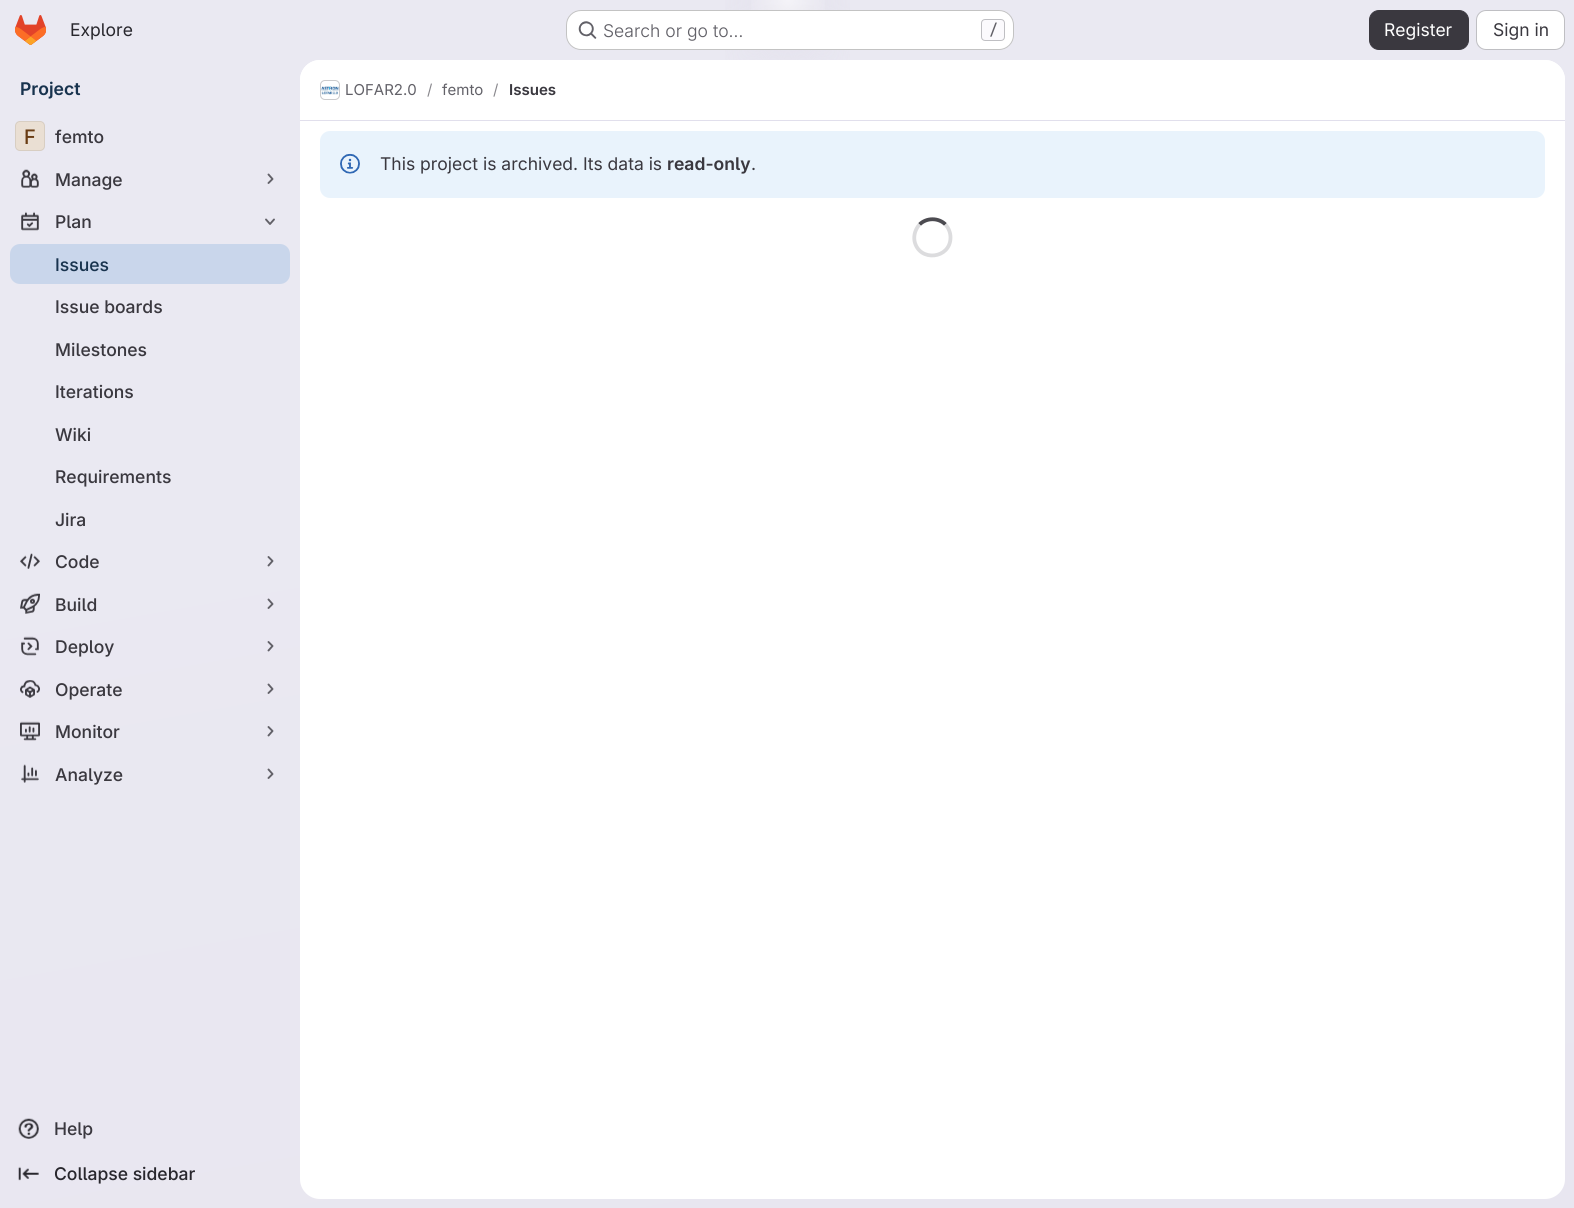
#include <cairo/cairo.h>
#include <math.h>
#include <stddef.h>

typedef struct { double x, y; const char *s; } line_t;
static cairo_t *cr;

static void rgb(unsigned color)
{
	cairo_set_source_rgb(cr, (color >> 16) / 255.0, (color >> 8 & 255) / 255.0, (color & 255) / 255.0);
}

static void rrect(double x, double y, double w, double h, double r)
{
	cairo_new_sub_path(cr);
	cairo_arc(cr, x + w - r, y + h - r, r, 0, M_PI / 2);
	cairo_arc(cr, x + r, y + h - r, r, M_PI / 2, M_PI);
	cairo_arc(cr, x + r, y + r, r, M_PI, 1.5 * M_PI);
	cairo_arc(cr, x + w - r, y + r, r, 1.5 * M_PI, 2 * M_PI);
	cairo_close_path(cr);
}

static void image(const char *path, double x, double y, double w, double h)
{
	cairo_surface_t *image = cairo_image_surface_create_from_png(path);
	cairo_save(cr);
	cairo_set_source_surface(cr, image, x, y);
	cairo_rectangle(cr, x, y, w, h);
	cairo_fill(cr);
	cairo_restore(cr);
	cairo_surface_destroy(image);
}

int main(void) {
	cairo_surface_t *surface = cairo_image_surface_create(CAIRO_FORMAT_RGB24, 1574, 1208);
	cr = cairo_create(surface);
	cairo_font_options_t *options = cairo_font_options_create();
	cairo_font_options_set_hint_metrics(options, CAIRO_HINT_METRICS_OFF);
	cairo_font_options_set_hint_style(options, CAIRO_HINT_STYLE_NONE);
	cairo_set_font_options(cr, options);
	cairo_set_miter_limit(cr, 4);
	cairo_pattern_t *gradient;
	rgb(0xffffff);
	cairo_paint(cr);
	gradient = cairo_pattern_create_linear(915, 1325, 660, -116);
	cairo_pattern_add_color_stop_rgba(gradient, 0, 0.91, 0.902, 0.941, 1);
	cairo_pattern_add_color_stop_rgba(gradient, 0.7, 0.918, 0.914, 0.949, 1);
	cairo_set_source(cr, gradient);
	cairo_pattern_destroy(gradient);
	cairo_rectangle(cr, 0, 0, 1574, 1208);
	cairo_fill(cr);
	gradient = cairo_pattern_create_radial(0, 0, 0, 0, 0, 1);
	cairo_pattern_set_matrix(gradient, &(cairo_matrix_t){1.0 / 788, 0, 0, 1.0 / 1209, -1.0 * 788 / 788, -1.0 * 0 / 1209});
	cairo_pattern_add_color_stop_rgba(gradient, 0, 0.894, 0.886, 0.929, 1);
	cairo_pattern_add_color_stop_rgba(gradient, 0.11, 0.894, 0.886, 0.929, 0);
	cairo_set_source(cr, gradient);
	cairo_pattern_destroy(gradient);
	cairo_rectangle(cr, 725, 0, 125, 60);
	cairo_fill(cr);
	gradient = cairo_pattern_create_radial(0, 0, 0, 0, 0, 1);
	cairo_pattern_set_matrix(gradient, &(cairo_matrix_t){1.0 / 788, 0, 0, 1.0 / 1209, -1.0 * 788 / 788, -1.0 * 0 / 1209});
	cairo_pattern_add_color_stop_rgba(gradient, 0, 0.894, 0.886, 0.925, 1);
	cairo_pattern_add_color_stop_rgba(gradient, 0.08, 0.894, 0.886, 0.925, 0);
	cairo_set_source(cr, gradient);
	cairo_pattern_destroy(gradient);
	cairo_rectangle(cr, 764, 5, 50, 20);
	cairo_fill(cr);
	gradient = cairo_pattern_create_radial(788, 0, 0, 788, 0, 1443);
	cairo_pattern_add_color_stop_rgba(gradient, 0, 1, 1, 1, 0.6);
	cairo_pattern_add_color_stop_rgba(gradient, 0.03, 1, 1, 1, 0);
	cairo_set_source(cr, gradient);
	cairo_pattern_destroy(gradient);
	cairo_rectangle(cr, 751, 0, 74, 10);
	cairo_fill(cr);
	image("img/1.png", 15, 15, 31, 30);
	rgb(0xffffff);
	rrect(566, 10, 448, 40, 15);
	cairo_fill(cr);
	rrect(566.5, 10.5, 447, 39, 14.5);
	cairo_set_source_rgba(cr, 0.02, 0.02, 0.024, 0.24);
	cairo_set_line_width(cr, 1);
	cairo_stroke(cr);
	image("img/2.png", 578, 21, 19, 18);
	rgb(0xfbfafd);
	rrect(981.5, 19.5, 23, 21, 3.5);
	cairo_fill_preserve(cr);
	rgb(0xbfbfc3);
	cairo_stroke(cr);
	rgb(0x3a383f);
	rrect(1369.5, 10.5, 99, 39, 9.5);
	cairo_fill_preserve(cr);
	cairo_stroke(cr);
	rgb(0xffffff);
	rrect(1476.5, 10.5, 88, 39, 9.5);
	cairo_fill_preserve(cr);
	rgb(0xbfbfc3);
	cairo_stroke(cr);
	rgb(0xeadfd3);
	rrect(15, 121, 30, 30, 5);
	cairo_fill(cr);
	rrect(15.5, 121.5, 29, 29, 4.5);
	cairo_set_source_rgba(cr, 0.02, 0.02, 0.024, 0.08);
	cairo_stroke(cr);
	image("img/3.png", 21, 169, 18, 19);
	cairo_new_path(cr);
	cairo_move_to(cr, 268.5, 174.5);
	cairo_line_to(cr, 272.5, 179);
	cairo_line_to(cr, 268.5, 183);
	rgb(0x626168);
	cairo_set_line_width(cr, 1.9);
	cairo_set_line_cap(cr, CAIRO_LINE_CAP_ROUND);
	cairo_set_line_join(cr, CAIRO_LINE_JOIN_ROUND);
	cairo_stroke(cr);
	image("img/4.png", 21, 211, 18, 20);
	cairo_new_path(cr);
	cairo_move_to(cr, 274, 219.5);
	cairo_line_to(cr, 270, 224);
	cairo_line_to(cr, 266, 219.5);
	cairo_stroke(cr);
	rgb(0xc9d6eb);
	rrect(10, 244, 280, 40, 10);
	cairo_fill(cr);
	image("img/5.png", 20, 553, 20, 16);
	cairo_new_path(cr);
	cairo_move_to(cr, 268.5, 557);
	cairo_line_to(cr, 272.5, 561);
	cairo_line_to(cr, 268.5, 565.5);
	rgb(0x626168);
	cairo_stroke(cr);
	image("img/6.png", 20, 593, 20, 21);
	cairo_new_path(cr);
	cairo_move_to(cr, 268.5, 599.5);
	cairo_line_to(cr, 272.5, 604);
	cairo_line_to(cr, 268.5, 608);
	cairo_stroke(cr);
	image("img/7.png", 21, 636, 18, 20);
	cairo_new_path(cr);
	cairo_move_to(cr, 268.5, 642);
	cairo_line_to(cr, 272.5, 646);
	cairo_line_to(cr, 268.5, 650.5);
	cairo_stroke(cr);
	image("img/8.png", 20, 680, 20, 18);
	cairo_new_path(cr);
	cairo_move_to(cr, 268.5, 684.5);
	cairo_line_to(cr, 272.5, 689);
	cairo_line_to(cr, 268.5, 693);
	cairo_stroke(cr);
	image("img/9.png", 20, 721, 20, 20);
	cairo_new_path(cr);
	cairo_move_to(cr, 268.5, 727);
	cairo_line_to(cr, 272.5, 731);
	cairo_line_to(cr, 268.5, 735.5);
	cairo_stroke(cr);
	image("img/10.png", 21, 764, 18, 19);
	cairo_new_path(cr);
	cairo_move_to(cr, 268.5, 769.5);
	cairo_line_to(cr, 272.5, 774);
	cairo_line_to(cr, 268.5, 778);
	cairo_stroke(cr);
	image("img/11.png", 18, 1118, 21, 21);
	image("img/12.png", 18, 1166, 21, 15);
	rgb(0xffffff);
	rrect(300, 60, 1265, 1139, 20);
	cairo_fill(cr);
	cairo_new_path(cr);
	cairo_move_to(cr, 320, 60);
	cairo_line_to(cr, 1545, 60);
	cairo_curve_to(cr, 1556, 60, 1565, 69, 1565, 80);
	cairo_line_to(cr, 1565, 121);
	cairo_line_to(cr, 300, 121);
	cairo_line_to(cr, 300, 80);
	cairo_curve_to(cr, 300, 69, 309, 60, 320, 60);
	cairo_close_path(cr);
	cairo_fill(cr);
	rgb(0xe1dfec);
	cairo_rectangle(cr, 300, 120, 1265, 1);
	cairo_fill(cr);
	rrect(320.5, 80.5, 19, 19, 4.5);
	rgb(0xdcdcde);
	cairo_set_line_width(cr, 1);
	cairo_set_line_cap(cr, CAIRO_LINE_CAP_BUTT);
	cairo_set_line_join(cr, CAIRO_LINE_JOIN_MITER);
	cairo_stroke(cr);
	image("img/13.png", 321, 86, 18, 9);
	rrect(320.5, 80.5, 19, 19, 4.5);
	cairo_set_source_rgba(cr, 0.02, 0.02, 0.024, 0.08);
	cairo_stroke(cr);
	rgb(0xe9f3fc);
	rrect(320, 131, 1225, 67, 10);
	cairo_fill(cr);
	image("img/14.png", 340, 153, 20, 21);
	cairo_new_path(cr);
	cairo_move_to(cr, 919.5, 224.5);
	cairo_curve_to(cr, 926.5, 217.5, 938.5, 217.5, 945.5, 224.5);
	rgb(0x4c4b51);
	cairo_set_line_width(cr, 3.8);
	cairo_stroke(cr);
	cairo_new_path(cr);
	cairo_move_to(cr, 945.5, 224.5);
	cairo_curve_to(cr, 948.5, 228, 950.5, 232.5, 950.5, 237.5);
	cairo_curve_to(cr, 950.5, 259, 919, 262.5, 914.5, 241);
	cairo_curve_to(cr, 913.5, 235, 915.5, 229, 919.5, 224.5);
	rgb(0xdcdcde);
	cairo_stroke(cr);
	cairo_select_font_face(cr, "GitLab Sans", CAIRO_FONT_SLANT_NORMAL, CAIRO_FONT_WEIGHT_NORMAL);
	cairo_set_font_size(cr, 17.5);
	rgb(0x28272d);
	cairo_move_to(cr, 70, 36);
	cairo_show_text(cr, "Explore");
	cairo_select_font_face(cr, "GitLab Sans Light", CAIRO_FONT_SLANT_NORMAL, CAIRO_FONT_WEIGHT_NORMAL);
	rgb(0x626168);
	cairo_move_to(cr, 603, 37);
	cairo_show_text(cr, "Search or go to…");
	cairo_select_font_face(cr, "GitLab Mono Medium", CAIRO_FONT_SLANT_NORMAL, CAIRO_FONT_WEIGHT_NORMAL);
	cairo_set_font_size(cr, 15);
	cairo_move_to(cr, 989, 35);
	cairo_show_text(cr, "/");
	cairo_select_font_face(cr, "GitLab Sans", CAIRO_FONT_SLANT_NORMAL, CAIRO_FONT_WEIGHT_NORMAL);
	cairo_set_font_size(cr, 17.5);
	rgb(0xffffff);
	cairo_move_to(cr, 1384, 36);
	cairo_show_text(cr, "Register");
	rgb(0x3a383f);
	cairo_move_to(cr, 1493, 36);
	cairo_show_text(cr, "Sign in");
	cairo_select_font_face(cr, "GitLab Sans SemiBold", CAIRO_FONT_SLANT_NORMAL, CAIRO_FONT_WEIGHT_NORMAL);
	rgb(0x18334e);
	cairo_move_to(cr, 20, 95);
	cairo_show_text(cr, "Project");
	cairo_select_font_face(cr, "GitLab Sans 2 Medium", CAIRO_FONT_SLANT_NORMAL, CAIRO_FONT_WEIGHT_NORMAL);
	cairo_set_font_size(cr, 20);
	rgb(0x693c14);
	cairo_move_to(cr, 24, 144);
	cairo_show_text(cr, "F");
	cairo_select_font_face(cr, "GitLab Sans Medium", CAIRO_FONT_SLANT_NORMAL, CAIRO_FONT_WEIGHT_NORMAL);
	cairo_set_font_size(cr, 17.5);
	rgb(0x3a383f);
	{
		static const line_t items[] = {
			{55, 143, "femto"},
			{55, 186, "Manage"},
			{55, 228, "Plan"},
		};
		for (size_t i = 0; i < sizeof items / sizeof *items; i++) {
			cairo_move_to(cr, items[i].x, items[i].y);
			cairo_show_text(cr, items[i].s);
		}
	}
	rgb(0x18334e);
	cairo_move_to(cr, 55, 271);
	cairo_show_text(cr, "Issues");
	rgb(0x3a383f);
	{
		static const line_t items[] = {
			{55, 313, "Issue boards"},
			{55, 356, "Milestones"},
			{55, 398, "Iterations"},
			{55, 441, "Wiki"},
			{55, 483, "Requirements"},
			{55, 526, "Jira"},
			{55, 568, "Code"},
			{55, 611, "Build"},
			{55, 653, "Deploy"},
			{55, 696, "Operate"},
			{55, 738, "Monitor"},
			{55, 781, "Analyze"},
			{54, 1135, "Help"},
		};
		for (size_t i = 0; i < sizeof items / sizeof *items; i++) {
			cairo_move_to(cr, items[i].x, items[i].y);
			cairo_show_text(cr, items[i].s);
		}
	}
	rgb(0x28272d);
	cairo_move_to(cr, 54, 1180);
	cairo_show_text(cr, "Collapse sidebar");
	cairo_select_font_face(cr, "GitLab Sans", CAIRO_FONT_SLANT_NORMAL, CAIRO_FONT_WEIGHT_NORMAL);
	cairo_set_font_size(cr, 15);
	rgb(0x626168);
	cairo_move_to(cr, 345, 95);
	cairo_show_text(cr, "LOFAR2.0");
	rgb(0x89888d);
	cairo_move_to(cr, 427, 95);
	cairo_show_text(cr, "/");
	rgb(0x626168);
	cairo_move_to(cr, 442, 95);
	cairo_show_text(cr, "femto");
	rgb(0x89888d);
	cairo_move_to(cr, 493, 95);
	cairo_show_text(cr, "/");
	cairo_select_font_face(cr, "GitLab Sans SemiBold", CAIRO_FONT_SLANT_NORMAL, CAIRO_FONT_WEIGHT_NORMAL);
	rgb(0x3a383f);
	cairo_move_to(cr, 509, 95);
	cairo_show_text(cr, "Issues");
	cairo_select_font_face(cr, "GitLab Sans", CAIRO_FONT_SLANT_NORMAL, CAIRO_FONT_WEIGHT_NORMAL);
	cairo_set_font_size(cr, 17.5);
	cairo_move_to(cr, 380, 170);
	cairo_show_text(cr, "This project is archived. Its data is");
	cairo_select_font_face(cr, "GitLab Sans SemiBold", CAIRO_FONT_SLANT_NORMAL, CAIRO_FONT_WEIGHT_NORMAL);
	cairo_move_to(cr, 667, 170);
	cairo_show_text(cr, "read-only");
	cairo_select_font_face(cr, "GitLab Sans", CAIRO_FONT_SLANT_NORMAL, CAIRO_FONT_WEIGHT_NORMAL);
	cairo_move_to(cr, 751, 170);
	cairo_show_text(cr, ".");
	cairo_surface_write_to_png(surface, "page.png");
	cairo_font_options_destroy(options);
	cairo_destroy(cr);
	cairo_surface_destroy(surface);
	return 0;
}
